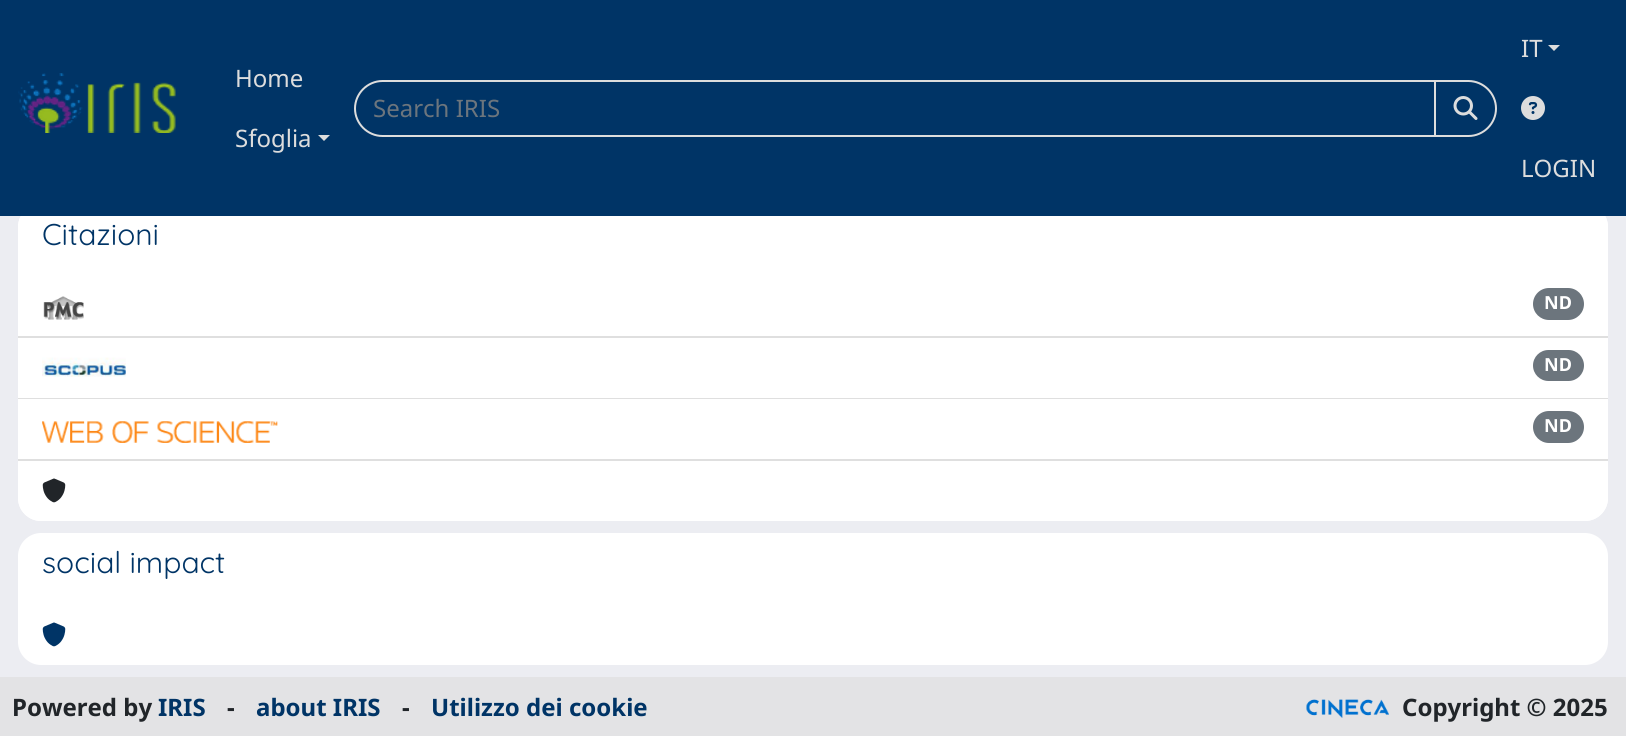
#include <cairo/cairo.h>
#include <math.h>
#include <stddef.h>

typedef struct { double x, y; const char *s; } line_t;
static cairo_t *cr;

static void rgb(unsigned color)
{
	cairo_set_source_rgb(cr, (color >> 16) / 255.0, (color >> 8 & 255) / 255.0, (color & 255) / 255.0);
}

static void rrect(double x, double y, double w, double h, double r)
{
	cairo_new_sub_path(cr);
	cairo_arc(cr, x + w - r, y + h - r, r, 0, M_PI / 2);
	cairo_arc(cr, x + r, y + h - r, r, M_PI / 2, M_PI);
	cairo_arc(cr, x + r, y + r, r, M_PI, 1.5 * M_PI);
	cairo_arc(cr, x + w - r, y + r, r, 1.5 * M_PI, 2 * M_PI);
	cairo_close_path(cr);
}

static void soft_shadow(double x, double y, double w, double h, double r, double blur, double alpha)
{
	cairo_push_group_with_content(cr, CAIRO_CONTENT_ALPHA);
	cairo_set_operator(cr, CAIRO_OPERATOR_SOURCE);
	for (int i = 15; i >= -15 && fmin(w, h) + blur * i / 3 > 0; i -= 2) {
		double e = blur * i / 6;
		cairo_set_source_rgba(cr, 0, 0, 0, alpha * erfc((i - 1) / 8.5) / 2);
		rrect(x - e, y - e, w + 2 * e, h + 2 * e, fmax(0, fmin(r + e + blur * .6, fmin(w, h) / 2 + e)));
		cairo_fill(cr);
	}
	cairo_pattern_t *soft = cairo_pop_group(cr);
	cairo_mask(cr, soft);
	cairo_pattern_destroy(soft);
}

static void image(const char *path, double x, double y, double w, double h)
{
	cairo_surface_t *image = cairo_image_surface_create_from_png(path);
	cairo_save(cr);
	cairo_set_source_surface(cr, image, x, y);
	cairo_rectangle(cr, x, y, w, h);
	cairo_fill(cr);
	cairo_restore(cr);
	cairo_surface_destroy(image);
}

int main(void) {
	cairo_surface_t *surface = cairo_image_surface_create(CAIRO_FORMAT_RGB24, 1626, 736);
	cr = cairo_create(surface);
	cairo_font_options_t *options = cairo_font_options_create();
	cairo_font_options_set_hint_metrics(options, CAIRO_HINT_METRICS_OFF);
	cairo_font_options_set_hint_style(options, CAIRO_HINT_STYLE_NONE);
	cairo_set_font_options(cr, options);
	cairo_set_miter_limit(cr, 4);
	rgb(0xecedf2);
	cairo_paint(cr);
	rgb(0xffffff);
	rrect(18, 204, 1590, 317, 23);
	cairo_fill(cr);
	cairo_new_path(cr);
	cairo_move_to(cr, 41, 204);
	cairo_line_to(cr, 1585, 204);
	cairo_curve_to(cr, 1597.5, 204, 1608, 214.5, 1608, 227);
	cairo_line_to(cr, 1608, 276);
	cairo_line_to(cr, 18, 276);
	cairo_line_to(cr, 18, 227);
	cairo_curve_to(cr, 18, 214.5, 28.5, 204, 41, 204);
	cairo_close_path(cr);
	cairo_fill(cr);
	rgb(0x003466);
	cairo_rectangle(cr, 0, 0, 1626, 216);
	cairo_fill(cr);
	image("img/1.png", 18, 73, 158, 60);
	rgb(0xdddddd);
	cairo_new_path(cr);
	cairo_move_to(cr, 318, 135);
	cairo_line_to(cr, 330, 135);
	cairo_line_to(cr, 324, 141);
	cairo_close_path(cr);
	cairo_fill(cr);
	cairo_new_path(cr);
	cairo_move_to(cr, 382.5, 81);
	cairo_line_to(cr, 1435, 81);
	cairo_line_to(cr, 1435, 136);
	cairo_line_to(cr, 382.5, 136);
	cairo_curve_to(cr, 367.5, 136, 355, 123.5, 355, 108.5);
	cairo_curve_to(cr, 355, 93.5, 367.5, 81, 382.5, 81);
	cairo_close_path(cr);
	cairo_stroke(cr);
	rgb(0x000000);
	soft_shadow(1434, 81, 63, 57, 28.5, 1, 0.07);
	rgb(0x003466);
	cairo_new_path(cr);
	cairo_move_to(cr, 1434, 80);
	cairo_line_to(cr, 1468.5, 80);
	cairo_curve_to(cr, 1484, 80, 1497, 93, 1497, 108.5);
	cairo_curve_to(cr, 1497, 124, 1484, 137, 1468.5, 137);
	cairo_line_to(cr, 1434, 137);
	cairo_close_path(cr);
	cairo_fill(cr);
	rgb(0x26527d);
	cairo_new_path(cr);
	cairo_move_to(cr, 1436, 82);
	cairo_line_to(cr, 1468, 82);
	cairo_curve_to(cr, 1483, 82, 1495, 94, 1496, 109);
	cairo_line_to(cr, 1496, 108);
	cairo_curve_to(cr, 1496, 93, 1484, 81, 1469, 81);
	cairo_line_to(cr, 1436, 81);
	cairo_close_path(cr);
	cairo_fill(cr);
	cairo_new_path(cr);
	cairo_move_to(cr, 1435, 81);
	cairo_line_to(cr, 1468.5, 81);
	cairo_curve_to(cr, 1483.5, 81, 1496, 93.5, 1496, 108.5);
	cairo_curve_to(cr, 1496, 123.5, 1483.5, 136, 1468.5, 136);
	cairo_line_to(cr, 1435, 136);
	cairo_close_path(cr);
	rgb(0xdddddd);
	cairo_stroke(cr);
	image("img/2.png", 1453, 96, 25, 24);
	cairo_new_path(cr);
	cairo_move_to(cr, 1548, 45);
	cairo_line_to(cr, 1560, 45);
	cairo_line_to(cr, 1554, 51);
	cairo_close_path(cr);
	cairo_fill(cr);
	image("img/3.png", 1521, 96, 24, 24);
	rgb(0xdfdfdf);
	cairo_rectangle(cr, 18, 336, 1590, 2);
	cairo_fill(cr);
	image("img/4.png", 43, 296, 41, 24);
	rgb(0x6c757d);
	rrect(1533, 288, 51, 32, 16);
	cairo_fill(cr);
	rgb(0xdfdfdf);
	cairo_rectangle(cr, 18, 398, 1590, 1);
	cairo_fill(cr);
	image("img/5.png", 42, 357, 84, 20);
	rgb(0x6c757d);
	rrect(1533, 350, 51, 31, 15.5);
	cairo_fill(cr);
	rgb(0xdfdfdf);
	cairo_rectangle(cr, 18, 459, 1590, 2);
	cairo_fill(cr);
	image("img/6.png", 42, 421, 236, 22);
	rgb(0x6c757d);
	rrect(1533, 411, 51, 32, 16);
	cairo_fill(cr);
	rgb(0xffffff);
	cairo_new_path(cr);
	cairo_move_to(cr, 18, 461);
	cairo_line_to(cr, 1608, 461);
	cairo_line_to(cr, 1608, 498);
	cairo_curve_to(cr, 1608, 510.5, 1597.5, 521, 1585, 521);
	cairo_line_to(cr, 41, 521);
	cairo_curve_to(cr, 28.5, 521, 18, 510.5, 18, 498);
	cairo_close_path(cr);
	cairo_fill(cr);
	image("img/7.png", 42, 478, 24, 25);
	cairo_new_path(cr);
	cairo_move_to(cr, 41, 533);
	cairo_line_to(cr, 1585, 533);
	cairo_curve_to(cr, 1597.5, 533, 1608, 543.5, 1608, 556);
	cairo_line_to(cr, 1608, 605);
	cairo_line_to(cr, 18, 605);
	cairo_line_to(cr, 18, 556);
	cairo_curve_to(cr, 18, 543.5, 28.5, 533, 41, 533);
	cairo_close_path(cr);
	cairo_fill(cr);
	cairo_new_path(cr);
	cairo_move_to(cr, 18, 605);
	cairo_line_to(cr, 1608, 605);
	cairo_line_to(cr, 1608, 642);
	cairo_curve_to(cr, 1608, 654.5, 1597.5, 665, 1585, 665);
	cairo_line_to(cr, 41, 665);
	cairo_curve_to(cr, 28.5, 665, 18, 654.5, 18, 642);
	cairo_close_path(cr);
	cairo_fill(cr);
	image("img/8.png", 42, 622, 24, 25);
	rgb(0xe3e3e5);
	cairo_rectangle(cr, 0, 677, 1626, 59);
	cairo_fill(cr);
	image("img/9.png", 1306, 699, 83, 19);
	cairo_select_font_face(cr, "Noto Sans", CAIRO_FONT_SLANT_NORMAL, CAIRO_FONT_WEIGHT_NORMAL);
	cairo_set_font_size(cr, 24);
	rgb(0xdddddd);
	cairo_move_to(cr, 235, 87);
	cairo_show_text(cr, "Home");
	cairo_move_to(cr, 235, 147);
	cairo_show_text(cr, "Sfoglia");
	rgb(0x6c757d);
	cairo_move_to(cr, 373, 117);
	cairo_show_text(cr, "Search IRIS");
	rgb(0xdddddd);
	cairo_move_to(cr, 1521, 57);
	cairo_show_text(cr, "IT");
	cairo_move_to(cr, 1521, 177);
	cairo_show_text(cr, "LOGIN");
	cairo_select_font_face(cr, "Quicksand Light", CAIRO_FONT_SLANT_NORMAL, CAIRO_FONT_WEIGHT_NORMAL);
	cairo_set_font_size(cr, 30);
	rgb(0x003466);
	cairo_move_to(cr, 42, 245);
	cairo_show_text(cr, "Citazioni");
	cairo_select_font_face(cr, "Noto Sans", CAIRO_FONT_SLANT_NORMAL, CAIRO_FONT_WEIGHT_BOLD);
	cairo_set_font_size(cr, 18);
	rgb(0xffffff);
	{
		static const line_t items[] = {
			{1544, 309, "ND"},
			{1544, 371, "ND"},
			{1544, 432, "ND"},
		};
		for (size_t i = 0; i < sizeof items / sizeof *items; i++) {
			cairo_move_to(cr, items[i].x, items[i].y);
			cairo_show_text(cr, items[i].s);
		}
	}
	cairo_select_font_face(cr, "Quicksand Light", CAIRO_FONT_SLANT_NORMAL, CAIRO_FONT_WEIGHT_NORMAL);
	cairo_set_font_size(cr, 30);
	rgb(0x003466);
	cairo_move_to(cr, 42, 573);
	cairo_show_text(cr, "social impact");
	cairo_select_font_face(cr, "Noto Sans", CAIRO_FONT_SLANT_NORMAL, CAIRO_FONT_WEIGHT_BOLD);
	cairo_set_font_size(cr, 24);
	rgb(0x212529);
	cairo_move_to(cr, 12, 716);
	cairo_show_text(cr, "Powered by");
	rgb(0x003466);
	cairo_move_to(cr, 158, 716);
	cairo_show_text(cr, "IRIS");
	rgb(0x212529);
	cairo_move_to(cr, 227, 716);
	cairo_show_text(cr, "-");
	rgb(0x003466);
	cairo_move_to(cr, 256, 716);
	cairo_show_text(cr, "about IRIS");
	rgb(0x212529);
	cairo_move_to(cr, 402, 716);
	cairo_show_text(cr, "-");
	rgb(0x003466);
	cairo_move_to(cr, 431, 716);
	cairo_show_text(cr, "Utilizzo dei cookie");
	rgb(0x212529);
	cairo_move_to(cr, 1402, 716);
	cairo_show_text(cr, "Copyright © 2025");
	cairo_surface_write_to_png(surface, "page.png");
	cairo_font_options_destroy(options);
	cairo_destroy(cr);
	cairo_surface_destroy(surface);
	return 0;
}
